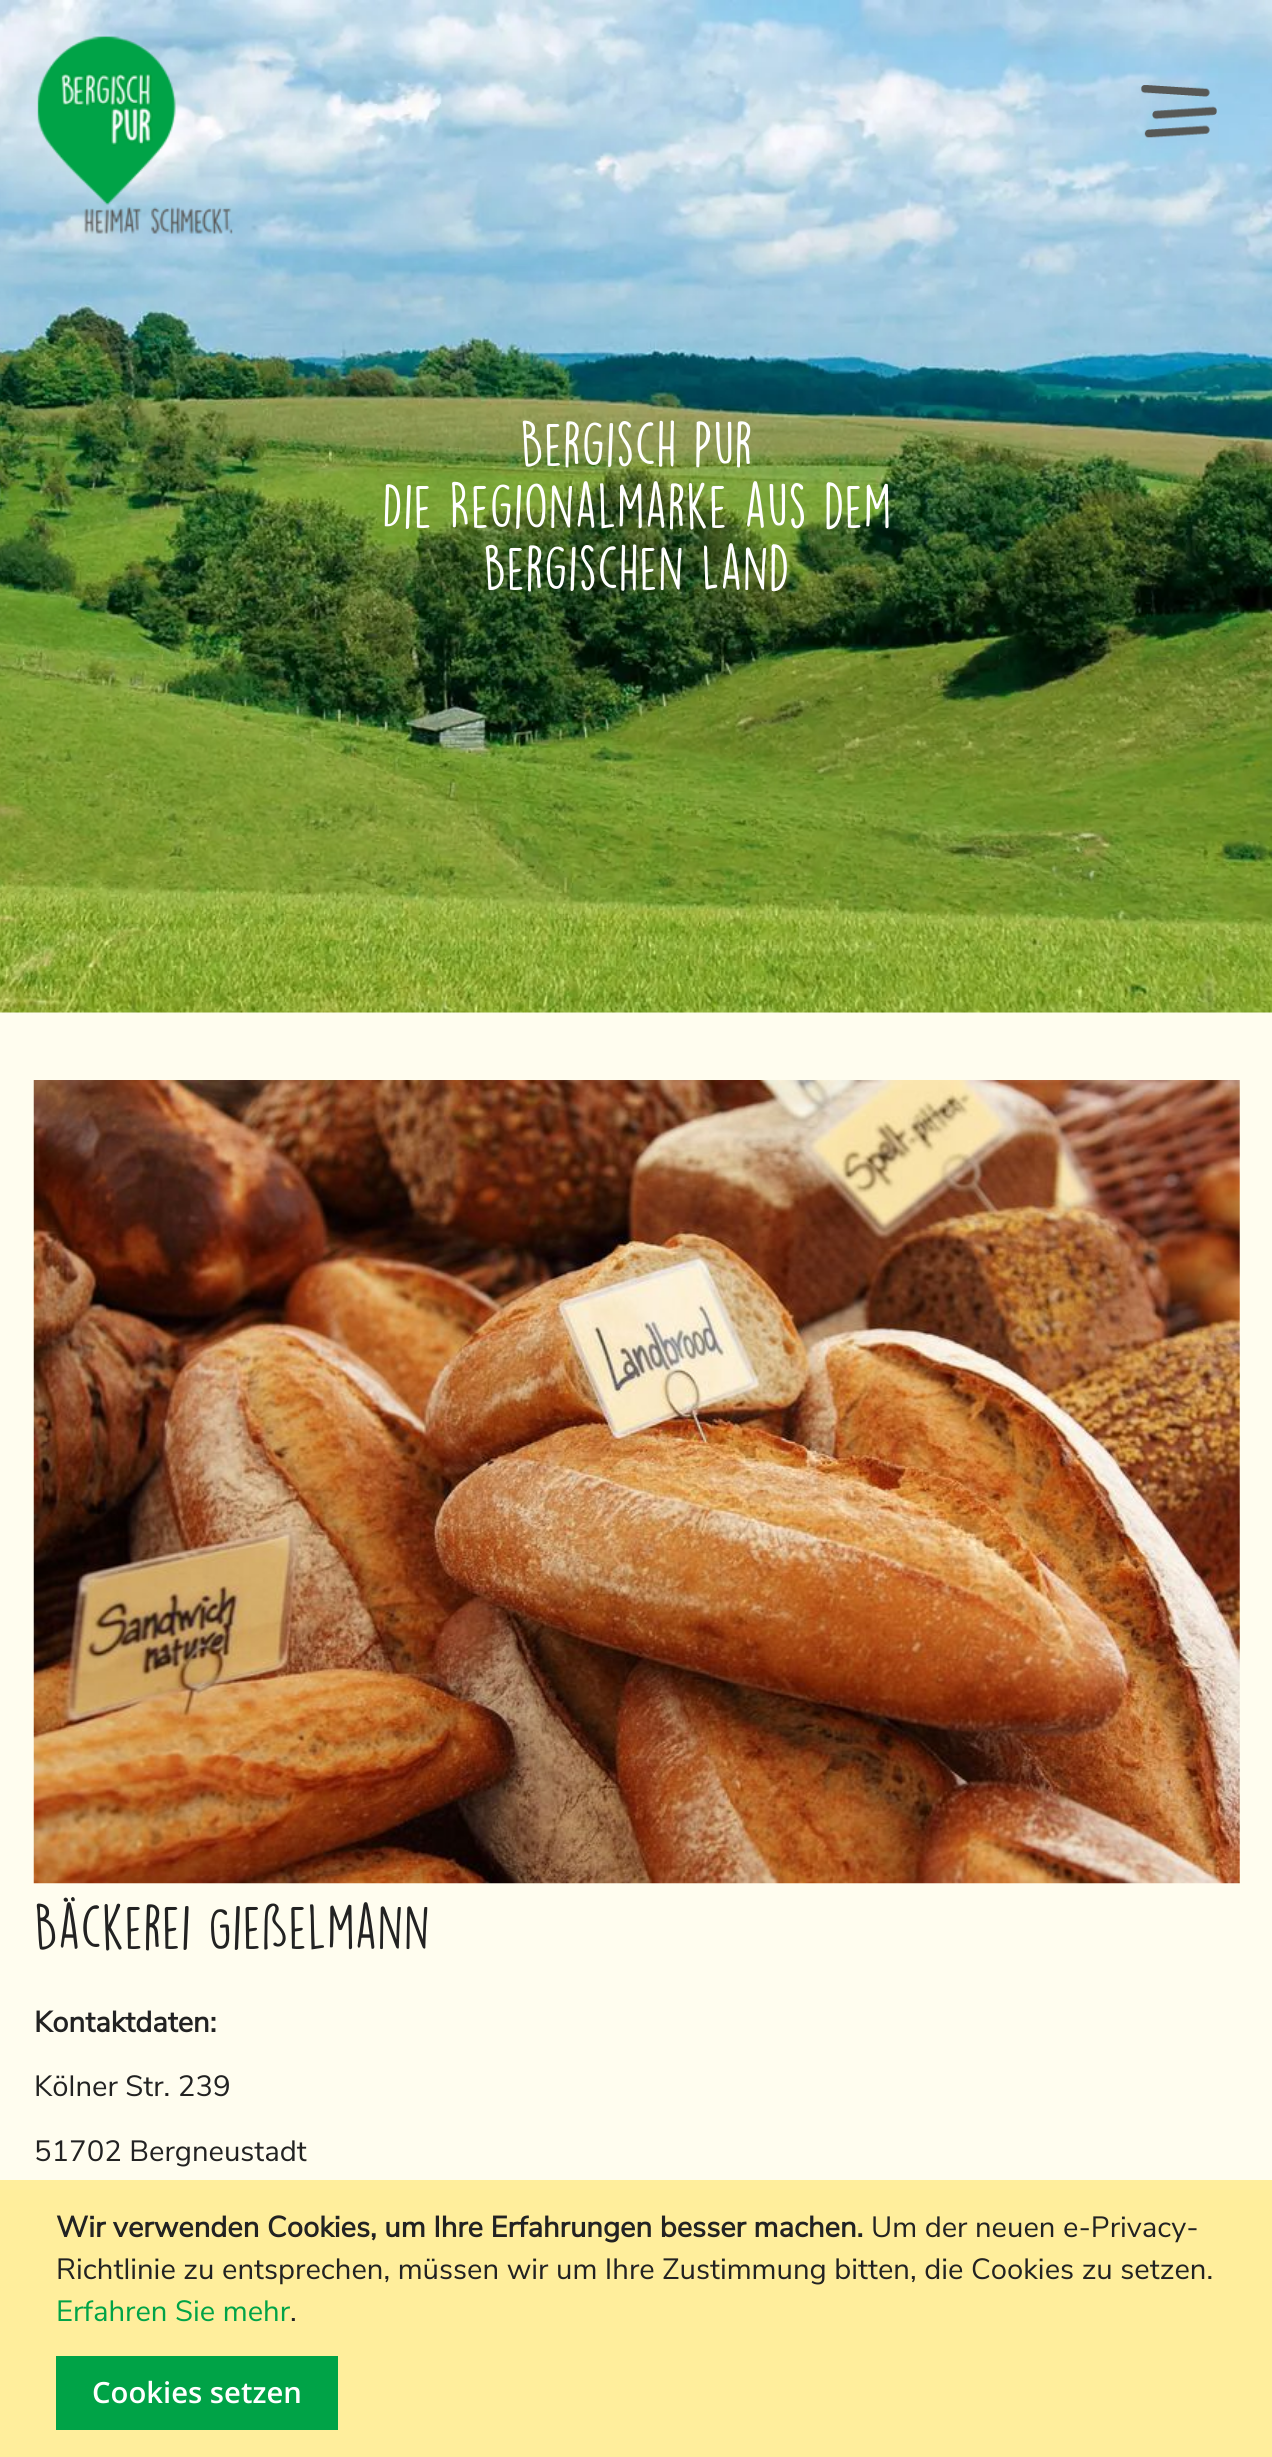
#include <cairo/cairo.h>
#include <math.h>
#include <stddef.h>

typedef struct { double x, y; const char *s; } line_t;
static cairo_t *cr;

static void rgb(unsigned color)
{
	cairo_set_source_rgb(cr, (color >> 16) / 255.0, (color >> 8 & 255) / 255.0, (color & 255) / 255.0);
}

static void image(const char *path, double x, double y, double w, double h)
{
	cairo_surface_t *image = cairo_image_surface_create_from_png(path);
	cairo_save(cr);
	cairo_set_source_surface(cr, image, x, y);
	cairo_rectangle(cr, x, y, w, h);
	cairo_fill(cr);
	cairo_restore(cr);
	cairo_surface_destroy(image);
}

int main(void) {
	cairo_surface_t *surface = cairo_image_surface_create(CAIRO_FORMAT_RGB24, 1272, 2457);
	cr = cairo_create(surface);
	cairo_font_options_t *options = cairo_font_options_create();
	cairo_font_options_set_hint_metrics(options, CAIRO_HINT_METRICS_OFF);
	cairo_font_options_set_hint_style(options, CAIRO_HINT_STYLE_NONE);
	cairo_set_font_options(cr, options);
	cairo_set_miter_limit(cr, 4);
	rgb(0xfffdef);
	cairo_paint(cr);
	image("img/3.png", 0, 0, 1272, 1013);
	image("img/1.png", 37, 36, 196, 198);
	image("img/2.png", 1141, 85, 76, 53);
	image("img/4.png", 33, 1080, 1207, 804);
	rgb(0xffee9c);
	cairo_rectangle(cr, 0, 2180, 1272, 277);
	cairo_fill(cr);
	rgb(0x00a347);
	cairo_rectangle(cr, 56, 2356, 282, 74);
	cairo_fill(cr);
	cairo_select_font_face(cr, "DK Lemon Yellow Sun", CAIRO_FONT_SLANT_NORMAL, CAIRO_FONT_WEIGHT_NORMAL);
	cairo_set_font_size(cr, 56.25);
	rgb(0xffffff);
	{
		static const line_t items[] = {
			{520, 467, "Bergisch Pur"},
			{382, 529, "Die Regionalmarke aus dem"},
			{483, 591, "bergischen Land"},
		};
		for (size_t i = 0; i < sizeof items / sizeof *items; i++) {
			cairo_move_to(cr, items[i].x, items[i].y);
			cairo_show_text(cr, items[i].s);
		}
	}
	rgb(0x222222);
	cairo_move_to(cr, 34, 1950);
	cairo_show_text(cr, "Bäckerei Gießelmann");
	cairo_select_font_face(cr, "Nunito Sans", CAIRO_FONT_SLANT_NORMAL, CAIRO_FONT_WEIGHT_BOLD);
	cairo_set_font_size(cr, 29.25);
	cairo_move_to(cr, 34, 2032);
	cairo_show_text(cr, "Kontaktdaten:");
	cairo_select_font_face(cr, "Nunito Sans", CAIRO_FONT_SLANT_NORMAL, CAIRO_FONT_WEIGHT_NORMAL);
	cairo_move_to(cr, 34, 2096);
	cairo_show_text(cr, "Kölner Str. 239");
	cairo_move_to(cr, 34, 2161);
	cairo_show_text(cr, "51702 Bergneustadt");
	cairo_select_font_face(cr, "Nunito Sans", CAIRO_FONT_SLANT_NORMAL, CAIRO_FONT_WEIGHT_BOLD);
	cairo_move_to(cr, 56, 2237);
	cairo_show_text(cr, "Wir verwenden Cookies, um Ihre Erfahrungen besser machen.");
	cairo_select_font_face(cr, "Nunito Sans", CAIRO_FONT_SLANT_NORMAL, CAIRO_FONT_WEIGHT_NORMAL);
	cairo_move_to(cr, 871, 2237);
	cairo_show_text(cr, "Um der neuen e-Privacy-");
	cairo_move_to(cr, 56, 2279);
	cairo_show_text(cr, "Richtlinie zu entsprechen, müssen wir um Ihre Zustimmung bitten, die Cookies zu setzen.");
	rgb(0x00a347);
	cairo_move_to(cr, 56, 2321);
	cairo_show_text(cr, "Erfahren Sie mehr");
	rgb(0x222222);
	cairo_move_to(cr, 290, 2321);
	cairo_show_text(cr, ".");
	cairo_select_font_face(cr, "Open Sans SemiBold", CAIRO_FONT_SLANT_NORMAL, CAIRO_FONT_WEIGHT_NORMAL);
	rgb(0xffffff);
	cairo_move_to(cr, 92, 2403);
	cairo_show_text(cr, "Cookies setzen");
	cairo_surface_write_to_png(surface, "page.png");
	cairo_font_options_destroy(options);
	cairo_destroy(cr);
	cairo_surface_destroy(surface);
	return 0;
}
